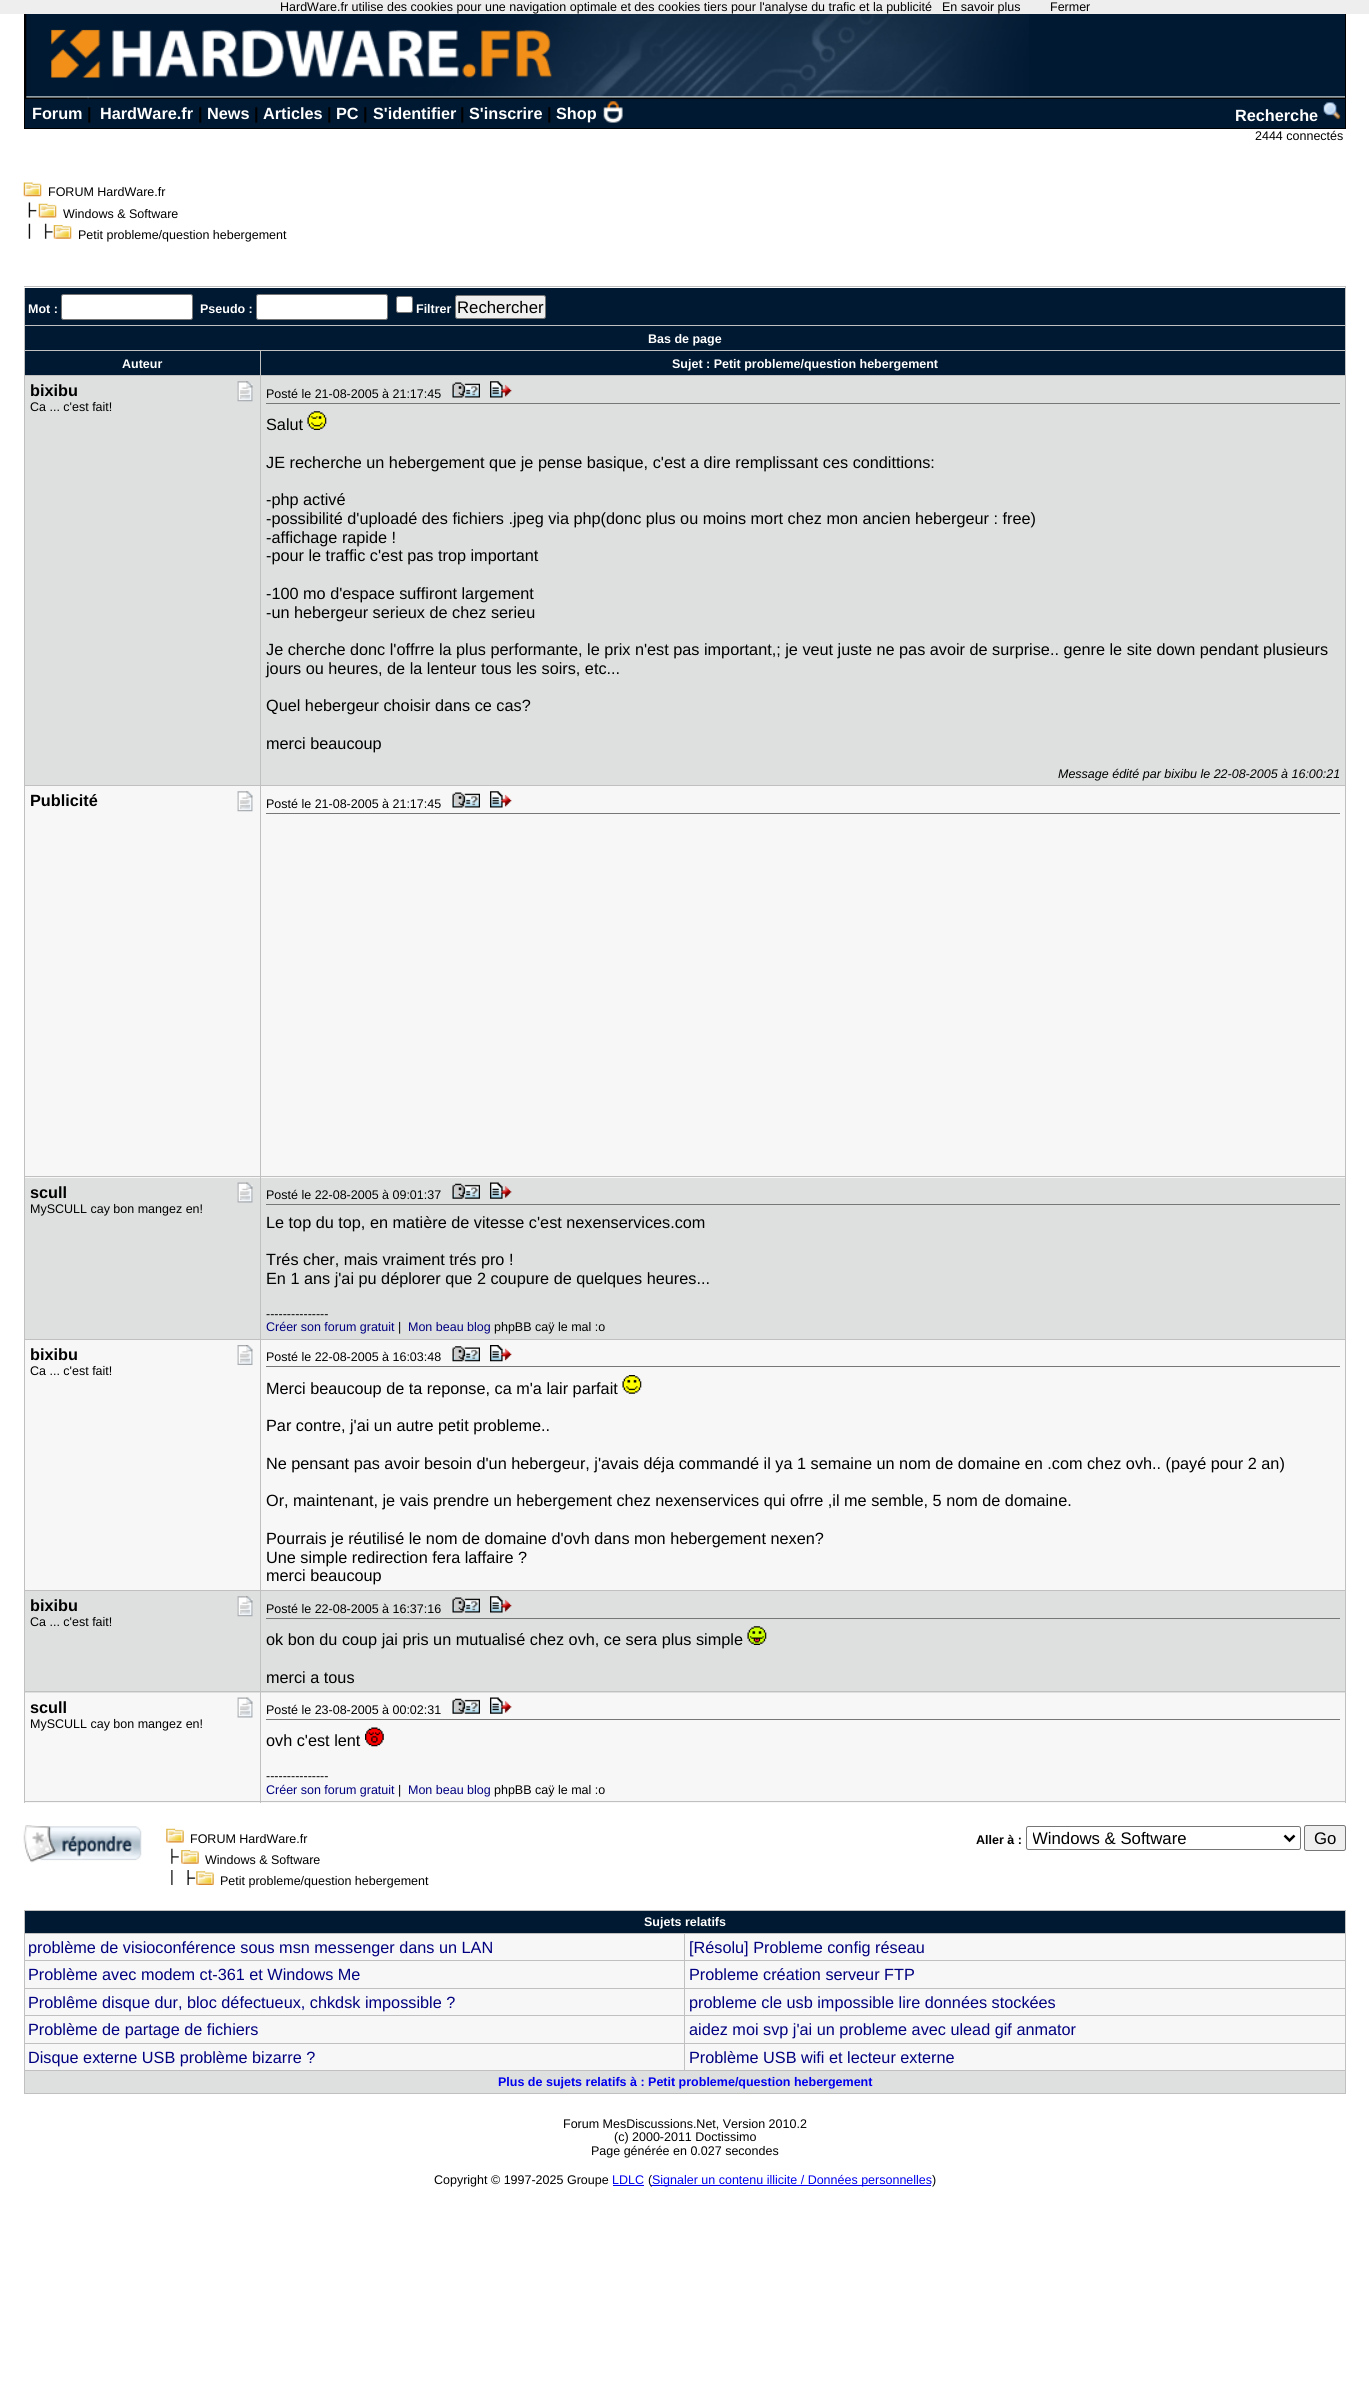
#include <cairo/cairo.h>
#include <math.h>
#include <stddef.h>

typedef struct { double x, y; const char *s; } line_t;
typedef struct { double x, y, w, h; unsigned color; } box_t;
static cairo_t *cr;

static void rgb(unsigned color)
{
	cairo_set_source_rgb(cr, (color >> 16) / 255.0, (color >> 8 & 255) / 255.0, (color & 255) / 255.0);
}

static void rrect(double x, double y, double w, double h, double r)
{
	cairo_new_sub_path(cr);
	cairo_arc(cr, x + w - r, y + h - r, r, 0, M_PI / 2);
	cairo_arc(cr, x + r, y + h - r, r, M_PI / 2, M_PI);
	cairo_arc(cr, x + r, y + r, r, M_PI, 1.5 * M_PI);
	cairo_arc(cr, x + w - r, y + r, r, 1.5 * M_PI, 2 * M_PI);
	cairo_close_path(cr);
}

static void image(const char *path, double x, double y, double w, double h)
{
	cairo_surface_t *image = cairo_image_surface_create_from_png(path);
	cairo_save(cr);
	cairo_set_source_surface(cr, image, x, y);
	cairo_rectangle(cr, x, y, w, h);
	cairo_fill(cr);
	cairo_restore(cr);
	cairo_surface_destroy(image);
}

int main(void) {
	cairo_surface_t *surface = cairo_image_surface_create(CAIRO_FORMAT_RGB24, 1369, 2381);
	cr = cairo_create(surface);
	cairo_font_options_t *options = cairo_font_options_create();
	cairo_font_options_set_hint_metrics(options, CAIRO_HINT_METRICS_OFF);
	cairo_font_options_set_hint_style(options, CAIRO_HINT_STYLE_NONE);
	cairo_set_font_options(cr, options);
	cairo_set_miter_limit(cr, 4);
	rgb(0xffffff);
	cairo_paint(cr);
	rgb(0xeeeeee);
	cairo_rectangle(cr, 0, 0, 1369, 14);
	cairo_fill(cr);
	rgb(0x000000);
	cairo_rectangle(cr, 24, 14, 1322, 115);
	cairo_fill(cr);
	image("img/1.png", 1029, 14, 316, 84);
	image("img/2.png", 25, 14, 1004, 85);
	rgb(0x001932);
	cairo_rectangle(cr, 25, 99, 1320, 29);
	cairo_fill(cr);
	image("img/3.png", 603, 101, 20, 22);
	image("img/4.png", 1323, 102, 18, 18);
	image("img/5.png", 23, 182, 19, 15);
	image("img/6.png", 28, 202, 9, 16);
	image("img/7.png", 38, 203, 19, 15);
	image("img/8.png", 28, 223, 25, 16);
	image("img/9.png", 53, 225, 19, 14);
	{
		static const box_t items[] = {
			{24, 286, 1322, 1, 0xc0c0c0},
			{1345, 286, 1, 1517, 0xc0c0c0},
			{25, 288, 1320, 37, 0x001932},
			{24, 325, 1321, 1, 0xc0c0c0},
			{24, 288, 1, 38, 0xc0c0c0},
		};
		for (size_t i = 0; i < sizeof items / sizeof *items; i++) {
			rgb(items[i].color);
			cairo_rectangle(cr, items[i].x, items[i].y, items[i].w, items[i].h);
			cairo_fill(cr);
		}
	}
	rgb(0xffffff);
	rrect(61.5, 294.5, 131, 25, 2);
	cairo_fill_preserve(cr);
	rgb(0x767676);
	cairo_set_line_width(cr, 1);
	cairo_stroke(cr);
	rgb(0xffffff);
	rrect(256.5, 294.5, 131, 25, 2);
	cairo_fill_preserve(cr);
	rgb(0x767676);
	cairo_stroke(cr);
	rgb(0xffffff);
	rrect(396.5, 296.5, 16, 16, 2);
	cairo_fill_preserve(cr);
	rgb(0x767676);
	cairo_stroke(cr);
	rgb(0xefefef);
	rrect(455.5, 295.5, 90, 23, 2);
	cairo_fill_preserve(cr);
	rgb(0x767676);
	cairo_stroke(cr);
	{
		static const box_t items[] = {
			{25, 326, 1320, 24, 0x001932},
			{24, 350, 1321, 1, 0xc0c0c0},
			{24, 326, 1, 25, 0xc0c0c0},
			{25, 351, 1320, 24, 0x001932},
			{24, 375, 1321, 1, 0xc0c0c0},
			{24, 351, 1, 25, 0xc0c0c0},
			{260, 351, 1, 25, 0xc0c0c0},
			{25, 376, 1320, 409, 0xdedfdf},
			{24, 785, 1321, 1, 0xc0c0c0},
			{24, 376, 1, 410, 0xc0c0c0},
		};
		for (size_t i = 0; i < sizeof items / sizeof *items; i++) {
			rgb(items[i].color);
			cairo_rectangle(cr, items[i].x, items[i].y, items[i].w, items[i].h);
			cairo_fill(cr);
		}
	}
	image("img/10.png", 237, 381, 16, 21);
	cairo_rectangle(cr, 260, 376, 1, 410);
	cairo_fill(cr);
	rgb(0x777777);
	cairo_rectangle(cr, 266, 403, 1074, 1);
	cairo_fill(cr);
	image("img/11.png", 452, 382, 28, 16);
	image("img/12.png", 490, 381, 22, 17);
	image("img/13.png", 307, 411, 20, 19);
	{
		static const box_t items[] = {
			{25, 786, 1320, 392, 0xf7f7f7},
			{24, 1176, 1321, 1, 0xc0c0c0},
			{24, 786, 1, 392, 0xc0c0c0},
		};
		for (size_t i = 0; i < sizeof items / sizeof *items; i++) {
			rgb(items[i].color);
			cairo_rectangle(cr, items[i].x, items[i].y, items[i].w, items[i].h);
			cairo_fill(cr);
		}
	}
	image("img/14.png", 237, 791, 16, 21);
	cairo_rectangle(cr, 260, 786, 1, 392);
	cairo_fill(cr);
	rgb(0x777777);
	cairo_rectangle(cr, 266, 813, 1074, 1);
	cairo_fill(cr);
	image("img/15.png", 452, 792, 28, 16);
	image("img/16.png", 490, 791, 22, 17);
	{
		static const box_t items[] = {
			{25, 1178, 1320, 161, 0xdedfdf},
			{24, 1339, 1321, 1, 0xc0c0c0},
			{24, 1178, 1, 162, 0xc0c0c0},
		};
		for (size_t i = 0; i < sizeof items / sizeof *items; i++) {
			rgb(items[i].color);
			cairo_rectangle(cr, items[i].x, items[i].y, items[i].w, items[i].h);
			cairo_fill(cr);
		}
	}
	image("img/17.png", 237, 1182, 16, 21);
	cairo_rectangle(cr, 260, 1178, 1, 162);
	cairo_fill(cr);
	rgb(0x777777);
	cairo_rectangle(cr, 266, 1204, 1074, 1);
	cairo_fill(cr);
	image("img/18.png", 452, 1183, 28, 16);
	image("img/19.png", 490, 1182, 22, 17);
	{
		static const box_t items[] = {
			{25, 1340, 1320, 250, 0xf7f7f7},
			{24, 1590, 1321, 1, 0xc0c0c0},
			{24, 1340, 1, 251, 0xc0c0c0},
		};
		for (size_t i = 0; i < sizeof items / sizeof *items; i++) {
			rgb(items[i].color);
			cairo_rectangle(cr, items[i].x, items[i].y, items[i].w, items[i].h);
			cairo_fill(cr);
		}
	}
	image("img/20.png", 237, 1345, 16, 20);
	cairo_rectangle(cr, 260, 1340, 1, 251);
	cairo_fill(cr);
	rgb(0x777777);
	cairo_rectangle(cr, 266, 1366, 1074, 1);
	cairo_fill(cr);
	image("img/21.png", 452, 1346, 28, 16);
	image("img/22.png", 490, 1345, 22, 17);
	image("img/23.png", 622, 1375, 20, 19);
	{
		static const box_t items[] = {
			{25, 1591, 1320, 102, 0xdedfdf},
			{24, 1691, 1321, 1, 0xc0c0c0},
			{24, 1591, 1, 102, 0xc0c0c0},
		};
		for (size_t i = 0; i < sizeof items / sizeof *items; i++) {
			rgb(items[i].color);
			cairo_rectangle(cr, items[i].x, items[i].y, items[i].w, items[i].h);
			cairo_fill(cr);
		}
	}
	image("img/10.png", 237, 1596, 16, 21);
	cairo_rectangle(cr, 260, 1591, 1, 102);
	cairo_fill(cr);
	rgb(0x777777);
	cairo_rectangle(cr, 266, 1618, 1074, 1);
	cairo_fill(cr);
	image("img/11.png", 452, 1597, 28, 16);
	image("img/12.png", 490, 1596, 22, 17);
	image("img/24.png", 747, 1626, 20, 19);
	{
		static const box_t items[] = {
			{25, 1693, 1320, 110, 0xf7f7f7},
			{24, 1801, 1321, 1, 0xc0c0c0},
			{24, 1693, 1, 110, 0xc0c0c0},
		};
		for (size_t i = 0; i < sizeof items / sizeof *items; i++) {
			rgb(items[i].color);
			cairo_rectangle(cr, items[i].x, items[i].y, items[i].w, items[i].h);
			cairo_fill(cr);
		}
	}
	image("img/25.png", 237, 1697, 16, 21);
	cairo_rectangle(cr, 260, 1693, 1, 110);
	cairo_fill(cr);
	rgb(0x777777);
	cairo_rectangle(cr, 266, 1719, 1074, 1);
	cairo_fill(cr);
	image("img/26.png", 452, 1698, 28, 16);
	image("img/27.png", 490, 1697, 22, 17);
	image("img/28.png", 365, 1727, 19, 20);
	image("img/29.png", 23, 1825, 119, 38);
	image("img/30.png", 166, 1828, 18, 15);
	image("img/31.png", 171, 1848, 8, 16);
	image("img/32.png", 181, 1850, 18, 14);
	image("img/33.png", 171, 1870, 25, 15);
	image("img/34.png", 196, 1871, 18, 14);
	rrect(1026.5, 1826.5, 274, 23, 2);
	rgb(0x767676);
	cairo_stroke(cr);
	cairo_new_path(cr);
	cairo_move_to(cr, 1284.5, 1835.5);
	cairo_line_to(cr, 1289.5, 1840.5);
	cairo_line_to(cr, 1294.5, 1835.5);
	rgb(0x000000);
	cairo_set_line_width(cr, 2.5);
	cairo_stroke(cr);
	rgb(0xefefef);
	rrect(1304.5, 1825.5, 41, 25, 2);
	cairo_fill_preserve(cr);
	rgb(0x767676);
	cairo_set_line_width(cr, 1);
	cairo_stroke(cr);
	{
		static const box_t items[] = {
			{24, 1910, 1322, 1, 0xc0c0c0},
			{1345, 1910, 1, 184, 0xc0c0c0},
			{25, 1911, 1320, 22, 0x001932},
			{24, 1933, 1321, 1, 0xc0c0c0},
			{24, 1911, 1, 23, 0xc0c0c0},
			{25, 1934, 1320, 26, 0xf7f7f7},
			{24, 1960, 1321, 1, 0xc0c0c0},
			{24, 1934, 1, 27, 0xc0c0c0},
			{684, 1934, 1, 27, 0xc0c0c0},
			{25, 1961, 1320, 27, 0xf7f7f7},
			{24, 1988, 1321, 1, 0xc0c0c0},
			{24, 1961, 1, 28, 0xc0c0c0},
			{684, 1961, 1, 28, 0xc0c0c0},
			{25, 1989, 1320, 26, 0xf7f7f7},
			{24, 2015, 1321, 1, 0xc0c0c0},
			{24, 1989, 1, 27, 0xc0c0c0},
			{684, 1989, 1, 27, 0xc0c0c0},
			{25, 2016, 1320, 27, 0xf7f7f7},
			{24, 2043, 1321, 1, 0xc0c0c0},
			{24, 2016, 1, 28, 0xc0c0c0},
			{684, 2016, 1, 28, 0xc0c0c0},
			{25, 2044, 1320, 26, 0xf7f7f7},
			{24, 2070, 1321, 1, 0xc0c0c0},
			{24, 2044, 1, 27, 0xc0c0c0},
			{684, 2044, 1, 27, 0xc0c0c0},
			{25, 2071, 1320, 22, 0xdedfdf},
			{24, 2093, 1321, 1, 0xc0c0c0},
			{24, 2071, 1, 23, 0xc0c0c0},
			{613, 2185, 31, 1, 0x0000ee},
		};
		for (size_t i = 0; i < sizeof items / sizeof *items; i++) {
			rgb(items[i].color);
			cairo_rectangle(cr, items[i].x, items[i].y, items[i].w, items[i].h);
			cairo_fill(cr);
		}
	}
	cairo_select_font_face(cr, "Liberation Sans", CAIRO_FONT_SLANT_NORMAL, CAIRO_FONT_WEIGHT_NORMAL);
	cairo_set_font_size(cr, 12.5);
	rgb(0x000000);
	{
		static const line_t items[] = {
			{280, 11, "HardWare.fr utilise des cookies pour une navigation optimale et des cookies tiers pour l'analyse du trafic et la publicité"},
			{942, 11, "En savoir plus"},
			{1050, 11, "Fermer"},
		};
		for (size_t i = 0; i < sizeof items / sizeof *items; i++) {
			cairo_move_to(cr, items[i].x, items[i].y);
			cairo_show_text(cr, items[i].s);
		}
	}
	cairo_select_font_face(cr, "Liberation Sans", CAIRO_FONT_SLANT_NORMAL, CAIRO_FONT_WEIGHT_BOLD);
	cairo_set_font_size(cr, 16.25);
	rgb(0xffffff);
	cairo_move_to(cr, 32, 119);
	cairo_show_text(cr, "Forum");
	rgb(0x000000);
	cairo_move_to(cr, 87, 119);
	cairo_show_text(cr, "|");
	rgb(0xffffff);
	cairo_move_to(cr, 100, 119);
	cairo_show_text(cr, "HardWare.fr");
	rgb(0x000000);
	cairo_move_to(cr, 198, 119);
	cairo_show_text(cr, "|");
	rgb(0xffffff);
	cairo_move_to(cr, 207, 119);
	cairo_show_text(cr, "News");
	rgb(0x000000);
	cairo_move_to(cr, 254, 119);
	cairo_show_text(cr, "|");
	rgb(0xffffff);
	cairo_move_to(cr, 263, 119);
	cairo_show_text(cr, "Articles");
	rgb(0x000000);
	cairo_move_to(cr, 327, 119);
	cairo_show_text(cr, "|");
	rgb(0xffffff);
	cairo_move_to(cr, 336, 119);
	cairo_show_text(cr, "PC");
	rgb(0x000000);
	cairo_move_to(cr, 363, 119);
	cairo_show_text(cr, "|");
	rgb(0xffffff);
	cairo_move_to(cr, 373, 119);
	cairo_show_text(cr, "S'identifier");
	rgb(0x000000);
	cairo_move_to(cr, 460, 119);
	cairo_show_text(cr, "|");
	rgb(0xffffff);
	cairo_move_to(cr, 469, 119);
	cairo_show_text(cr, "S'inscrire");
	rgb(0x000000);
	cairo_move_to(cr, 547, 119);
	cairo_show_text(cr, "|");
	rgb(0xffffff);
	cairo_move_to(cr, 556, 119);
	cairo_show_text(cr, "Shop");
	cairo_move_to(cr, 1235, 121);
	cairo_show_text(cr, "Recherche");
	cairo_select_font_face(cr, "Liberation Sans", CAIRO_FONT_SLANT_NORMAL, CAIRO_FONT_WEIGHT_NORMAL);
	cairo_set_font_size(cr, 12.5);
	rgb(0x000000);
	{
		static const line_t items[] = {
			{1255, 140, "2444 connectés"},
			{48, 196, "FORUM HardWare.fr"},
			{63, 218, "Windows & Software"},
			{78, 239, "Petit probleme/question hebergement"},
		};
		for (size_t i = 0; i < sizeof items / sizeof *items; i++) {
			cairo_move_to(cr, items[i].x, items[i].y);
			cairo_show_text(cr, items[i].s);
		}
	}
	cairo_select_font_face(cr, "Liberation Sans", CAIRO_FONT_SLANT_NORMAL, CAIRO_FONT_WEIGHT_BOLD);
	rgb(0xffffff);
	{
		static const line_t items[] = {
			{28, 313, "Mot :"},
			{200, 313, "Pseudo :"},
			{416, 313, "Filtrer"},
		};
		for (size_t i = 0; i < sizeof items / sizeof *items; i++) {
			cairo_move_to(cr, items[i].x, items[i].y);
			cairo_show_text(cr, items[i].s);
		}
	}
	cairo_select_font_face(cr, "Liberation Sans", CAIRO_FONT_SLANT_NORMAL, CAIRO_FONT_WEIGHT_NORMAL);
	cairo_set_font_size(cr, 16.75);
	rgb(0x000000);
	cairo_move_to(cr, 457, 313);
	cairo_show_text(cr, "Rechercher");
	cairo_select_font_face(cr, "Liberation Sans", CAIRO_FONT_SLANT_NORMAL, CAIRO_FONT_WEIGHT_BOLD);
	cairo_set_font_size(cr, 12.5);
	rgb(0xffffff);
	{
		static const line_t items[] = {
			{648, 343, "Bas de page"},
			{122, 368, "Auteur"},
			{672, 368, "Sujet : Petit probleme/question hebergement"},
		};
		for (size_t i = 0; i < sizeof items / sizeof *items; i++) {
			cairo_move_to(cr, items[i].x, items[i].y);
			cairo_show_text(cr, items[i].s);
		}
	}
	cairo_set_font_size(cr, 16.25);
	rgb(0x000000);
	cairo_move_to(cr, 30, 396);
	cairo_show_text(cr, "bixibu");
	cairo_select_font_face(cr, "Liberation Sans", CAIRO_FONT_SLANT_NORMAL, CAIRO_FONT_WEIGHT_NORMAL);
	cairo_set_font_size(cr, 12.5);
	cairo_move_to(cr, 30, 411);
	cairo_show_text(cr, "Ca ... c'est fait!");
	cairo_move_to(cr, 266, 398);
	cairo_show_text(cr, "Posté le 21-08-2005 à 21:17:45");
	cairo_set_font_size(cr, 16.25);
	{
		static const line_t items[] = {
			{266, 430, "Salut"},
			{266, 468, "JE recherche un hebergement que je pense basique, c'est a dire remplissant ces condittions:"},
			{266, 505, "-php activé"},
			{266, 524, "-possibilité d'uploadé des fichiers .jpeg via php(donc plus ou moins mort chez mon ancien hebergeur : free)"},
			{266, 543, "-affichage rapide !"},
			{266, 561, "-pour le traffic c'est pas trop important"},
			{266, 599, "-100 mo d'espace suffiront largement"},
			{266, 618, "-un hebergeur serieux de chez serieu"},
			{266, 655, "Je cherche donc l'offrre la plus performante, le prix n'est pas important,; je veut juste ne pas avoir de surprise.. genre le site down pendant plusieurs"},
			{266, 674, "jours ou heures, de la lenteur tous les soirs, etc..."},
			{266, 711, "Quel hebergeur choisir dans ce cas?"},
			{266, 749, "merci beaucoup"},
		};
		for (size_t i = 0; i < sizeof items / sizeof *items; i++) {
			cairo_move_to(cr, items[i].x, items[i].y);
			cairo_show_text(cr, items[i].s);
		}
	}
	cairo_select_font_face(cr, "Liberation Sans", CAIRO_FONT_SLANT_ITALIC, CAIRO_FONT_WEIGHT_NORMAL);
	cairo_set_font_size(cr, 12.5);
	cairo_move_to(cr, 1058, 778);
	cairo_show_text(cr, "Message édité par bixibu le 22-08-2005 à 16:00:21");
	cairo_select_font_face(cr, "Liberation Sans", CAIRO_FONT_SLANT_NORMAL, CAIRO_FONT_WEIGHT_BOLD);
	cairo_set_font_size(cr, 16.25);
	cairo_move_to(cr, 30, 806);
	cairo_show_text(cr, "Publicité");
	cairo_select_font_face(cr, "Liberation Sans", CAIRO_FONT_SLANT_NORMAL, CAIRO_FONT_WEIGHT_NORMAL);
	cairo_set_font_size(cr, 12.5);
	cairo_move_to(cr, 266, 808);
	cairo_show_text(cr, "Posté le 21-08-2005 à 21:17:45");
	cairo_select_font_face(cr, "Liberation Sans", CAIRO_FONT_SLANT_NORMAL, CAIRO_FONT_WEIGHT_BOLD);
	cairo_set_font_size(cr, 16.25);
	cairo_move_to(cr, 30, 1198);
	cairo_show_text(cr, "scull");
	cairo_select_font_face(cr, "Liberation Sans", CAIRO_FONT_SLANT_NORMAL, CAIRO_FONT_WEIGHT_NORMAL);
	cairo_set_font_size(cr, 12.5);
	cairo_move_to(cr, 30, 1213);
	cairo_show_text(cr, "MySCULL cay bon mangez en!");
	cairo_move_to(cr, 266, 1199);
	cairo_show_text(cr, "Posté le 22-08-2005 à 09:01:37");
	cairo_set_font_size(cr, 16.25);
	{
		static const line_t items[] = {
			{266, 1228, "Le top du top, en matière de vitesse c'est nexenservices.com"},
			{266, 1265, "Trés cher, mais vraiment trés pro !"},
			{266, 1284, "En 1 ans j'ai pu déplorer que 2 coupure de quelques heures..."},
		};
		for (size_t i = 0; i < sizeof items / sizeof *items; i++) {
			cairo_move_to(cr, items[i].x, items[i].y);
			cairo_show_text(cr, items[i].s);
		}
	}
	cairo_set_font_size(cr, 12.5);
	cairo_move_to(cr, 266, 1318);
	cairo_show_text(cr, "---------------");
	rgb(0x000080);
	cairo_move_to(cr, 266, 1331);
	cairo_show_text(cr, "Créer son forum gratuit");
	rgb(0x000000);
	cairo_move_to(cr, 398, 1331);
	cairo_show_text(cr, "|");
	rgb(0x000080);
	cairo_move_to(cr, 408, 1331);
	cairo_show_text(cr, "Mon beau blog");
	rgb(0x000000);
	cairo_move_to(cr, 494, 1331);
	cairo_show_text(cr, "phpBB caÿ le mal :o");
	cairo_select_font_face(cr, "Liberation Sans", CAIRO_FONT_SLANT_NORMAL, CAIRO_FONT_WEIGHT_BOLD);
	cairo_set_font_size(cr, 16.25);
	cairo_move_to(cr, 30, 1360);
	cairo_show_text(cr, "bixibu");
	cairo_select_font_face(cr, "Liberation Sans", CAIRO_FONT_SLANT_NORMAL, CAIRO_FONT_WEIGHT_NORMAL);
	cairo_set_font_size(cr, 12.5);
	cairo_move_to(cr, 30, 1375);
	cairo_show_text(cr, "Ca ... c'est fait!");
	cairo_move_to(cr, 266, 1361);
	cairo_show_text(cr, "Posté le 22-08-2005 à 16:03:48");
	cairo_set_font_size(cr, 16.25);
	{
		static const line_t items[] = {
			{266, 1394, "Merci beaucoup de ta reponse, ca m'a lair parfait"},
			{266, 1431, "Par contre, j'ai un autre petit probleme.."},
			{266, 1469, "Ne pensant pas avoir besoin d'un hebergeur, j'avais déja commandé il ya 1 semaine un nom de domaine en .com chez ovh.. (payé pour 2 an)"},
			{266, 1506, "Or, maintenant, je vais prendre un hebergement chez nexenservices qui ofrre ,il me semble, 5 nom de domaine."},
			{266, 1544, "Pourrais je réutilisé le nom de domaine d'ovh dans mon hebergement nexen?"},
			{266, 1563, "Une simple redirection fera laffaire ?"},
			{266, 1581, "merci beaucoup"},
		};
		for (size_t i = 0; i < sizeof items / sizeof *items; i++) {
			cairo_move_to(cr, items[i].x, items[i].y);
			cairo_show_text(cr, items[i].s);
		}
	}
	cairo_select_font_face(cr, "Liberation Sans", CAIRO_FONT_SLANT_NORMAL, CAIRO_FONT_WEIGHT_BOLD);
	cairo_move_to(cr, 30, 1611);
	cairo_show_text(cr, "bixibu");
	cairo_select_font_face(cr, "Liberation Sans", CAIRO_FONT_SLANT_NORMAL, CAIRO_FONT_WEIGHT_NORMAL);
	cairo_set_font_size(cr, 12.5);
	cairo_move_to(cr, 30, 1626);
	cairo_show_text(cr, "Ca ... c'est fait!");
	cairo_move_to(cr, 266, 1613);
	cairo_show_text(cr, "Posté le 22-08-2005 à 16:37:16");
	cairo_set_font_size(cr, 16.25);
	cairo_move_to(cr, 266, 1645);
	cairo_show_text(cr, "ok bon du coup jai pris un mutualisé chez ovh, ce sera plus simple");
	cairo_move_to(cr, 266, 1683);
	cairo_show_text(cr, "merci a tous");
	cairo_select_font_face(cr, "Liberation Sans", CAIRO_FONT_SLANT_NORMAL, CAIRO_FONT_WEIGHT_BOLD);
	cairo_move_to(cr, 30, 1713);
	cairo_show_text(cr, "scull");
	cairo_select_font_face(cr, "Liberation Sans", CAIRO_FONT_SLANT_NORMAL, CAIRO_FONT_WEIGHT_NORMAL);
	cairo_set_font_size(cr, 12.5);
	cairo_move_to(cr, 30, 1728);
	cairo_show_text(cr, "MySCULL cay bon mangez en!");
	cairo_move_to(cr, 266, 1714);
	cairo_show_text(cr, "Posté le 23-08-2005 à 00:02:31");
	cairo_set_font_size(cr, 16.25);
	cairo_move_to(cr, 266, 1746);
	cairo_show_text(cr, "ovh c'est lent");
	cairo_set_font_size(cr, 12.5);
	cairo_move_to(cr, 266, 1780);
	cairo_show_text(cr, "---------------");
	rgb(0x000080);
	cairo_move_to(cr, 266, 1794);
	cairo_show_text(cr, "Créer son forum gratuit");
	rgb(0x000000);
	cairo_move_to(cr, 398, 1794);
	cairo_show_text(cr, "|");
	rgb(0x000080);
	cairo_move_to(cr, 408, 1794);
	cairo_show_text(cr, "Mon beau blog");
	rgb(0x000000);
	{
		static const line_t items[] = {
			{494, 1794, "phpBB caÿ le mal :o"},
			{190, 1843, "FORUM HardWare.fr"},
			{205, 1864, "Windows & Software"},
			{220, 1885, "Petit probleme/question hebergement"},
		};
		for (size_t i = 0; i < sizeof items / sizeof *items; i++) {
			cairo_move_to(cr, items[i].x, items[i].y);
			cairo_show_text(cr, items[i].s);
		}
	}
	cairo_select_font_face(cr, "Liberation Sans", CAIRO_FONT_SLANT_NORMAL, CAIRO_FONT_WEIGHT_BOLD);
	cairo_move_to(cr, 976, 1844);
	cairo_show_text(cr, "Aller à :");
	cairo_save(cr);
	cairo_rectangle(cr, 1033, 1828, 247, 21);
	cairo_clip(cr);
	cairo_select_font_face(cr, "Liberation Sans", CAIRO_FONT_SLANT_NORMAL, CAIRO_FONT_WEIGHT_NORMAL);
	cairo_set_font_size(cr, 16.75);
	cairo_move_to(cr, 1032, 1844);
	cairo_show_text(cr, "Windows & Software");
	cairo_restore(cr);
	cairo_select_font_face(cr, "Liberation Sans", CAIRO_FONT_SLANT_NORMAL, CAIRO_FONT_WEIGHT_NORMAL);
	cairo_set_font_size(cr, 16.75);
	cairo_move_to(cr, 1314, 1844);
	cairo_show_text(cr, "Go");
	cairo_select_font_face(cr, "Liberation Sans", CAIRO_FONT_SLANT_NORMAL, CAIRO_FONT_WEIGHT_BOLD);
	cairo_set_font_size(cr, 12.5);
	rgb(0xffffff);
	cairo_move_to(cr, 644, 1926);
	cairo_show_text(cr, "Sujets relatifs");
	cairo_select_font_face(cr, "Liberation Sans", CAIRO_FONT_SLANT_NORMAL, CAIRO_FONT_WEIGHT_NORMAL);
	cairo_set_font_size(cr, 16.25);
	rgb(0x000080);
	{
		static const line_t items[] = {
			{28, 1953, "problème de visioconférence sous msn messenger dans un LAN"},
			{689, 1953, "[Résolu] Probleme config réseau"},
			{28, 1980, "Problème avec modem ct-361 et Windows Me"},
			{689, 1980, "Probleme création serveur FTP"},
			{28, 2008, "Problême disque dur, bloc défectueux, chkdsk impossible ?"},
			{689, 2008, "probleme cle usb impossible lire données stockées"},
			{28, 2035, "Problème de partage de fichiers"},
			{689, 2035, "aidez moi svp j'ai un probleme avec ulead gif anmator"},
			{28, 2063, "Disque externe USB problème bizarre ?"},
			{689, 2063, "Problème USB wifi et lecteur externe"},
		};
		for (size_t i = 0; i < sizeof items / sizeof *items; i++) {
			cairo_move_to(cr, items[i].x, items[i].y);
			cairo_show_text(cr, items[i].s);
		}
	}
	cairo_select_font_face(cr, "Liberation Sans", CAIRO_FONT_SLANT_NORMAL, CAIRO_FONT_WEIGHT_BOLD);
	cairo_set_font_size(cr, 12.5);
	rgb(0x0000ee);
	cairo_move_to(cr, 498, 2086);
	cairo_show_text(cr, "Plus de sujets relatifs à : Petit probleme/question hebergement");
	cairo_select_font_face(cr, "Liberation Sans", CAIRO_FONT_SLANT_NORMAL, CAIRO_FONT_WEIGHT_NORMAL);
	rgb(0x000000);
	{
		static const line_t items[] = {
			{563, 2128, "Forum MesDiscussions.Net, Version 2010.2"},
			{614, 2141, "(c) 2000-2011 Doctissimo"},
			{591, 2155, "Page générée en 0.027 secondes"},
			{434, 2184, "Copyright © 1997-2025 Groupe"},
		};
		for (size_t i = 0; i < sizeof items / sizeof *items; i++) {
			cairo_move_to(cr, items[i].x, items[i].y);
			cairo_show_text(cr, items[i].s);
		}
	}
	rgb(0x0000ee);
	cairo_move_to(cr, 612, 2184);
	cairo_show_text(cr, "LDLC");
	rgb(0x000000);
	cairo_move_to(cr, 648, 2184);
	cairo_show_text(cr, "(");
	rgb(0x0000ee);
	cairo_rectangle(cr, 651, 2185, 280, 1);
	cairo_fill(cr);
	cairo_move_to(cr, 652, 2184);
	cairo_show_text(cr, "Signaler un contenu illicite / Données personnelles");
	rgb(0x000000);
	cairo_move_to(cr, 932, 2184);
	cairo_show_text(cr, ")");
	cairo_surface_write_to_png(surface, "page.png");
	cairo_font_options_destroy(options);
	cairo_destroy(cr);
	cairo_surface_destroy(surface);
	return 0;
}
